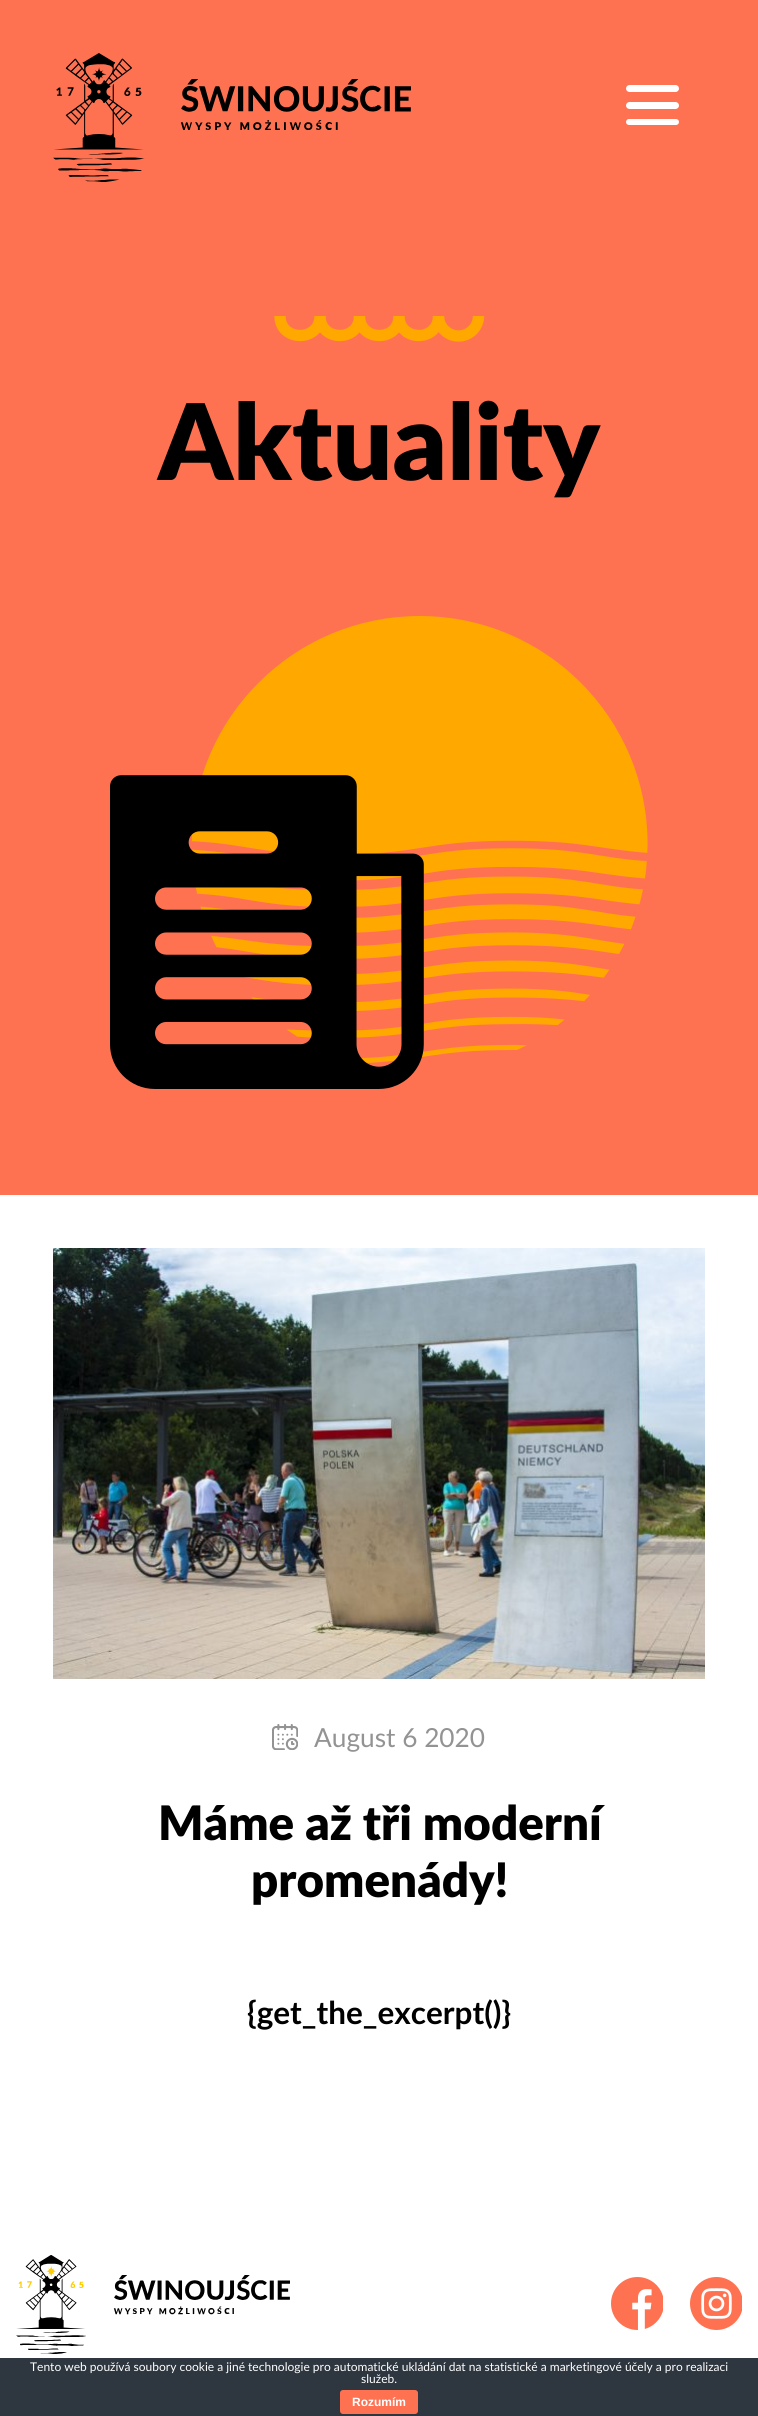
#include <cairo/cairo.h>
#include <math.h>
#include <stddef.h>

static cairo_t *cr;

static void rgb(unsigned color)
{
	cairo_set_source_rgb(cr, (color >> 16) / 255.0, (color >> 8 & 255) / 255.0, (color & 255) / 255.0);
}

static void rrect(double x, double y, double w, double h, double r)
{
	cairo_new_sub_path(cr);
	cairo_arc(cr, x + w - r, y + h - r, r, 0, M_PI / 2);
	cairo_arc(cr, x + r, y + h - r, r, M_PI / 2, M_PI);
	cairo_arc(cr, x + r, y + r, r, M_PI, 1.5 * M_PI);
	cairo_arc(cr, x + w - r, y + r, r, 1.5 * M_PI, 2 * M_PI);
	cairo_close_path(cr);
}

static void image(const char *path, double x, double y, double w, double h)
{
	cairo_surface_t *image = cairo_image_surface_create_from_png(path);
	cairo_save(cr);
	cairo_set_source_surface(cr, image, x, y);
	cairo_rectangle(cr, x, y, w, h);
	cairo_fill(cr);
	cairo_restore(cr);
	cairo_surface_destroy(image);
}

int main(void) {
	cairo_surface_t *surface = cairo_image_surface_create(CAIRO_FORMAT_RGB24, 758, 2416);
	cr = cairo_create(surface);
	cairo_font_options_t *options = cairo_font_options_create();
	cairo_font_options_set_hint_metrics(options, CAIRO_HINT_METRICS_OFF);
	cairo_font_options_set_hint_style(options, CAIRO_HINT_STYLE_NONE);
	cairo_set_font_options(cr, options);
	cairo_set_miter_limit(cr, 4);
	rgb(0xffffff);
	cairo_paint(cr);
	rgb(0xff7251);
	cairo_rectangle(cr, 0, 0, 758, 1195);
	cairo_fill(cr);
	image("img/1.png", 53, 53, 358, 129);
	rgb(0xffffff);
	rrect(626, 85, 53, 7, 3.5);
	cairo_fill(cr);
	rrect(626, 102, 53, 7, 3.5);
	cairo_fill(cr);
	rrect(626, 119, 53, 6, 3);
	cairo_fill(cr);
	cairo_new_path(cr);
	cairo_move_to(cr, 359.5, 316);
	cairo_curve_to(cr, 359.5, 342, 320, 342, 320, 316);
	cairo_curve_to(cr, 320, 342, 280, 342, 280, 316);
	rgb(0xffa800);
	cairo_set_line_width(cr, 11.3);
	cairo_set_line_join(cr, CAIRO_LINE_JOIN_BEVEL);
	cairo_stroke(cr);
	cairo_new_path(cr);
	cairo_move_to(cr, 438.5, 316);
	cairo_curve_to(cr, 438.5, 342, 399, 342, 399, 316);
	cairo_curve_to(cr, 399, 342, 359.5, 342, 359.5, 316);
	cairo_stroke(cr);
	cairo_new_path(cr);
	cairo_move_to(cr, 478.5, 316);
	cairo_curve_to(cr, 478.5, 327, 469.5, 336, 458.5, 336);
	cairo_curve_to(cr, 447.5, 336, 438.5, 327, 438.5, 316);
	cairo_stroke(cr);
	image("img/2.png", 110, 616, 538, 473);
	image("img/3.png", 53, 1248, 652, 431);
	image("img/4.png", 272, 1724, 26, 26);
	image("img/5.png", 16, 2255, 274, 99);
	image("img/6.png", 611, 2277, 52, 53);
	image("img/7.png", 690, 2277, 52, 53);
	rgb(0x2e363f);
	cairo_rectangle(cr, 0, 2358, 758, 58);
	cairo_fill(cr);
	rgb(0xff7251);
	rrect(340, 2390, 78, 24, 3);
	cairo_fill(cr);
	cairo_select_font_face(cr, "Lato Black", CAIRO_FONT_SLANT_NORMAL, CAIRO_FONT_WEIGHT_NORMAL);
	cairo_set_font_size(cr, 105.5);
	rgb(0x000000);
	cairo_move_to(cr, 158, 480);
	cairo_show_text(cr, "Aktuality");
	cairo_select_font_face(cr, "Lato", CAIRO_FONT_SLANT_NORMAL, CAIRO_FONT_WEIGHT_NORMAL);
	cairo_set_font_size(cr, 26.25);
	rgb(0x939393);
	cairo_move_to(cr, 314, 1747);
	cairo_show_text(cr, "August 6 2020");
	cairo_select_font_face(cr, "Lato Black", CAIRO_FONT_SLANT_NORMAL, CAIRO_FONT_WEIGHT_NORMAL);
	cairo_set_font_size(cr, 47.5);
	rgb(0x000000);
	cairo_move_to(cr, 158, 1840);
	cairo_show_text(cr, "Máme až tři moderní");
	cairo_move_to(cr, 251, 1897);
	cairo_show_text(cr, "promenády!");
	cairo_select_font_face(cr, "Lato", CAIRO_FONT_SLANT_NORMAL, CAIRO_FONT_WEIGHT_BOLD);
	cairo_set_font_size(cr, 31.5);
	cairo_move_to(cr, 247, 2024);
	cairo_show_text(cr, "{get_the_excerpt()}");
	cairo_select_font_face(cr, "Lato", CAIRO_FONT_SLANT_NORMAL, CAIRO_FONT_WEIGHT_NORMAL);
	cairo_set_font_size(cr, 12);
	rgb(0xffffff);
	cairo_move_to(cr, 30, 2371);
	cairo_show_text(cr, "Tento web používá soubory cookie a jiné technologie pro automatické ukládání dat na statistické a marketingové účely a pro realizaci");
	cairo_move_to(cr, 361, 2383);
	cairo_show_text(cr, "služeb.");
	cairo_select_font_face(cr, "Liberation Sans", CAIRO_FONT_SLANT_NORMAL, CAIRO_FONT_WEIGHT_BOLD);
	cairo_move_to(cr, 352, 2406);
	cairo_show_text(cr, "Rozumím");
	cairo_surface_write_to_png(surface, "page.png");
	cairo_font_options_destroy(options);
	cairo_destroy(cr);
	cairo_surface_destroy(surface);
	return 0;
}
